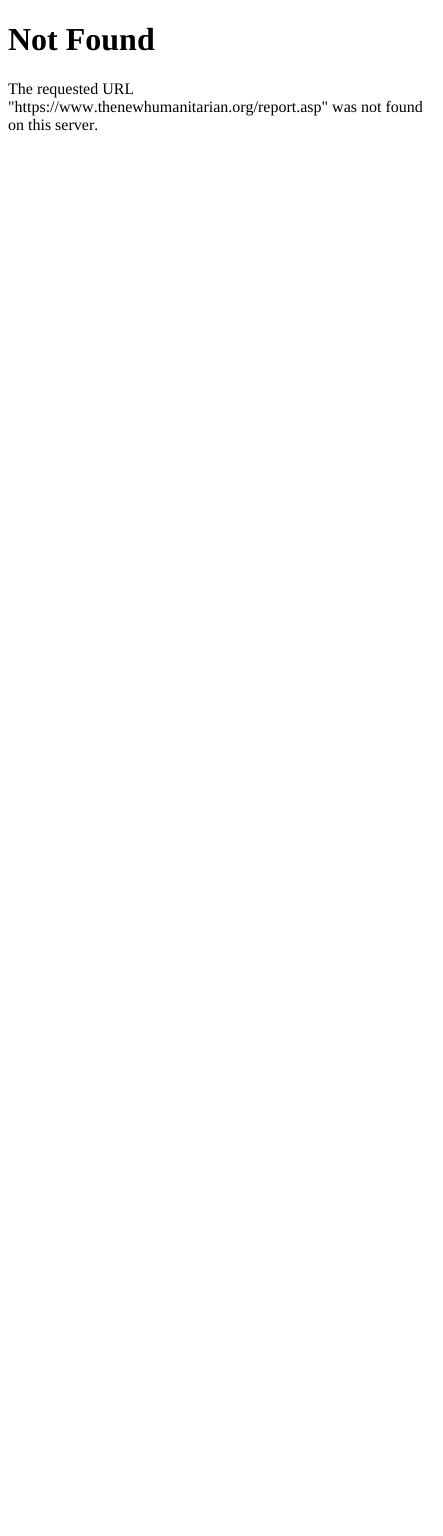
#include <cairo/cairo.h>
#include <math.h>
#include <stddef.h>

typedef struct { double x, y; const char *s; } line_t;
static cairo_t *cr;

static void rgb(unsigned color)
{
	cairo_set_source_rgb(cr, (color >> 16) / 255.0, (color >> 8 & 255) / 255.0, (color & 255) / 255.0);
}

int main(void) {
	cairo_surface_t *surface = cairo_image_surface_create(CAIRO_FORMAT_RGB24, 443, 1536);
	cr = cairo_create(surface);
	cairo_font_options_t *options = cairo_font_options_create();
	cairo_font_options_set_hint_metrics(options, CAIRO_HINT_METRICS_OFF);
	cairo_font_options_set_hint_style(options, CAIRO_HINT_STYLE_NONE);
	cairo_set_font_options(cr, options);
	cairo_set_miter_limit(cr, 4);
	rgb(0xffffff);
	cairo_paint(cr);
	cairo_select_font_face(cr, "Liberation Serif", CAIRO_FONT_SLANT_NORMAL, CAIRO_FONT_WEIGHT_BOLD);
	cairo_set_font_size(cr, 32);
	rgb(0x000000);
	cairo_move_to(cr, 8, 50);
	cairo_show_text(cr, "Not Found");
	cairo_select_font_face(cr, "Liberation Serif", CAIRO_FONT_SLANT_NORMAL, CAIRO_FONT_WEIGHT_NORMAL);
	cairo_set_font_size(cr, 16);
	{
		static const line_t items[] = {
			{8, 94, "The requested URL"},
			{8, 112, "\"https://www.thenewhumanitarian.org/report.asp\" was not found"},
			{8, 130, "on this server."},
		};
		for (size_t i = 0; i < sizeof items / sizeof *items; i++) {
			cairo_move_to(cr, items[i].x, items[i].y);
			cairo_show_text(cr, items[i].s);
		}
	}
	cairo_surface_write_to_png(surface, "page.png");
	cairo_font_options_destroy(options);
	cairo_destroy(cr);
	cairo_surface_destroy(surface);
	return 0;
}
